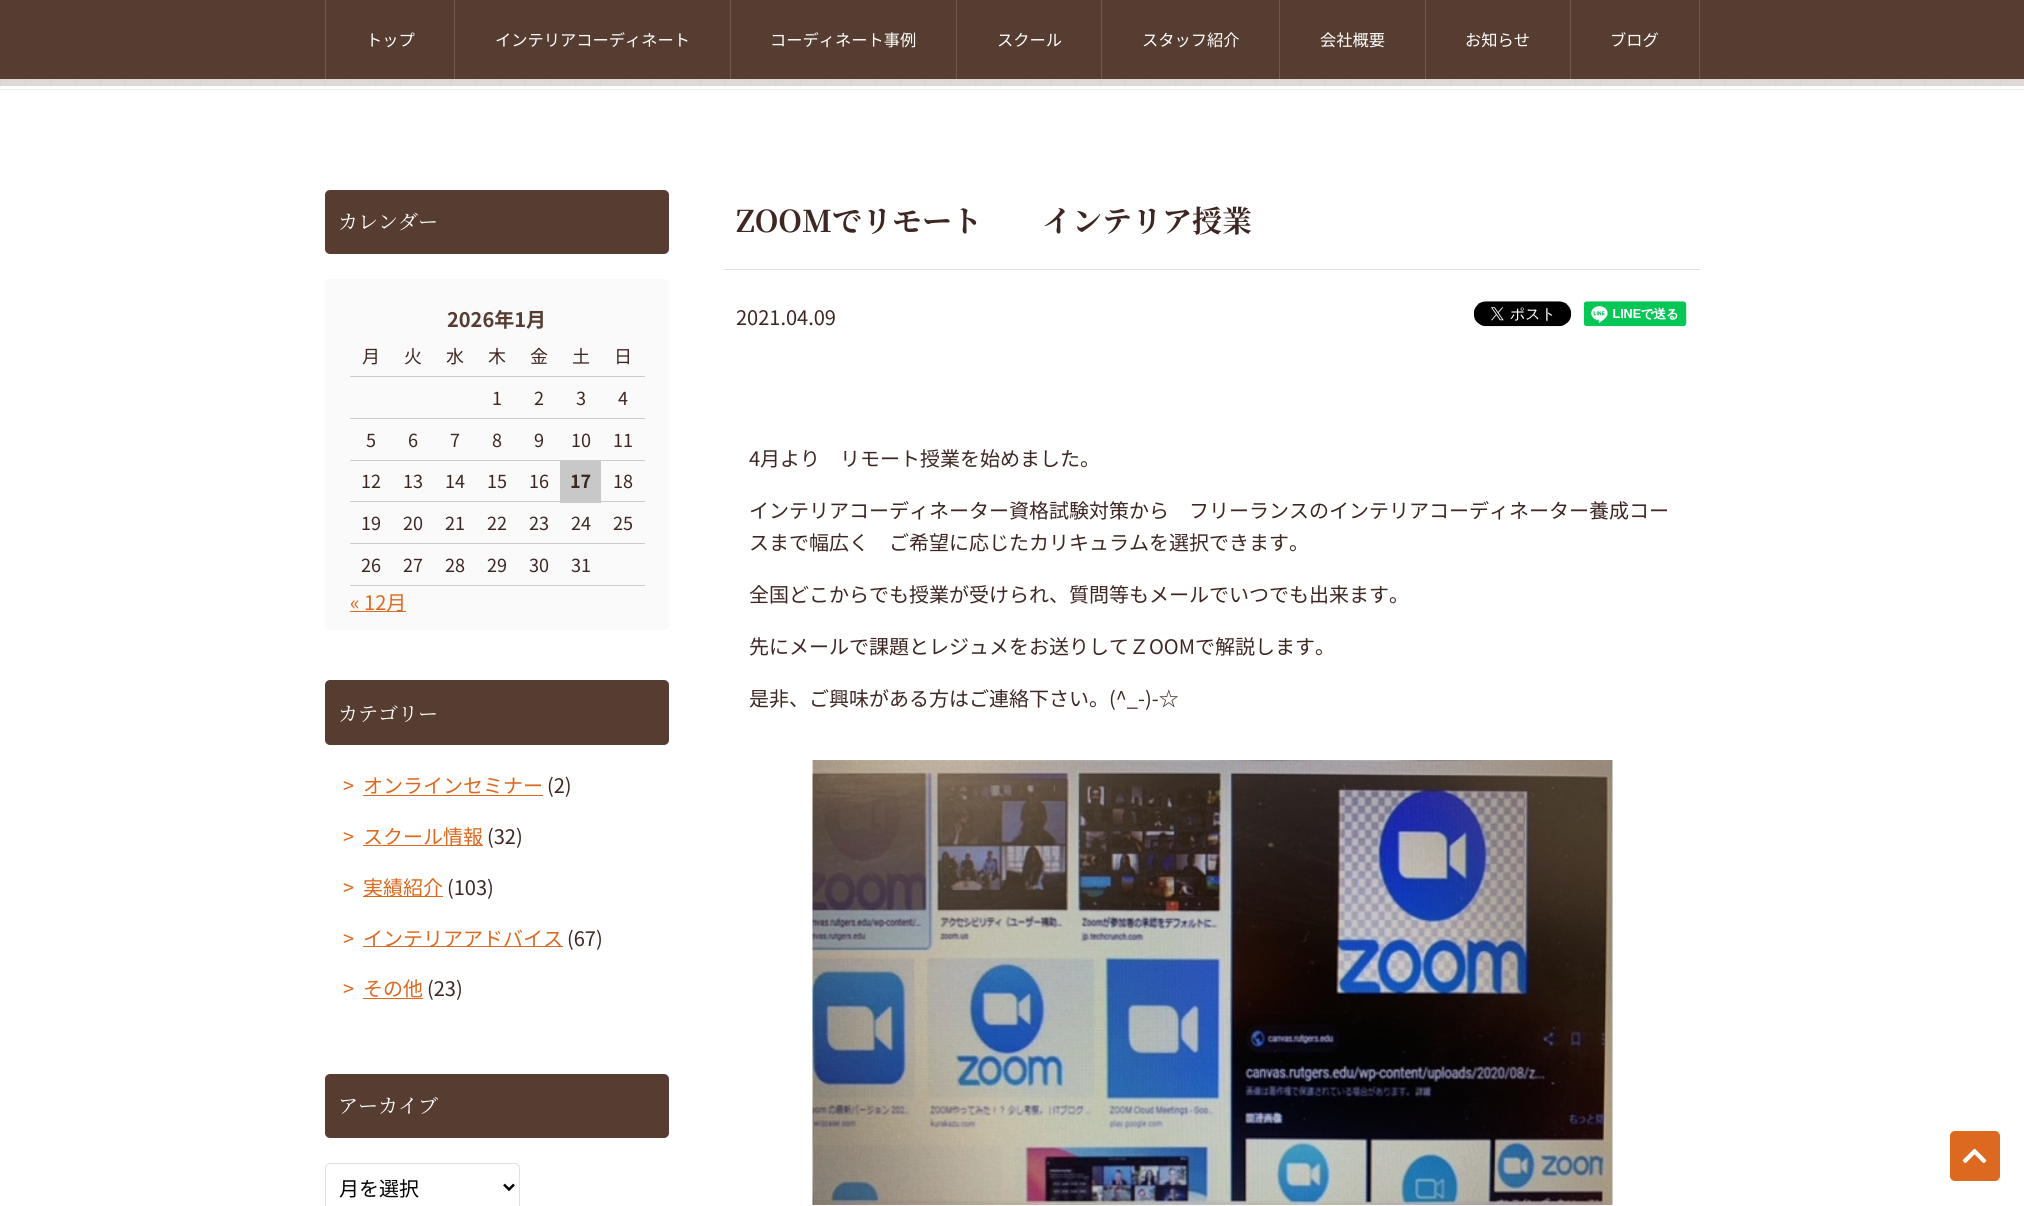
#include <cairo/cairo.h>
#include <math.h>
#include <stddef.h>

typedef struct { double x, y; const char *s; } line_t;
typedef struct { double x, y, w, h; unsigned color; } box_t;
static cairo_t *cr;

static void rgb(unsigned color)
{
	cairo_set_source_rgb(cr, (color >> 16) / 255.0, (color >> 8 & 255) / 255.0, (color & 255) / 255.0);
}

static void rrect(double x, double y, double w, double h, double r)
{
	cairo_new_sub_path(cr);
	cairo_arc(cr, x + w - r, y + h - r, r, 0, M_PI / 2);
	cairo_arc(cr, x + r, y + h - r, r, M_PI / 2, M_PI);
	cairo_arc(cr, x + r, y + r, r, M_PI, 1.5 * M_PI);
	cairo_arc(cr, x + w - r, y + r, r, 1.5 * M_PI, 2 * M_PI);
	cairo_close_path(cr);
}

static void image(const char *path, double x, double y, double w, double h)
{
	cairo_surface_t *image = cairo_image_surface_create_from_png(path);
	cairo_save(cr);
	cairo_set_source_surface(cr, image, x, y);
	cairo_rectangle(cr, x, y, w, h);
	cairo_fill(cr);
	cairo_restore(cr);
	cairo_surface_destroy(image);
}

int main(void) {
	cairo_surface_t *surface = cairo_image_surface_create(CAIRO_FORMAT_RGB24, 2024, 1206);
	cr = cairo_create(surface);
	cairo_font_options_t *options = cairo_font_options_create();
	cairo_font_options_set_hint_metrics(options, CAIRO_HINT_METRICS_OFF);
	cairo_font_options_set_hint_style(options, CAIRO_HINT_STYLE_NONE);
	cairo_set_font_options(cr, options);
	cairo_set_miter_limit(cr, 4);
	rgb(0xffffff);
	cairo_paint(cr);
	{
		static const box_t items[] = {
			{0, 0, 2024, 79, 0x573d31},
			{454, 0, 1, 79, 0x705a50},
			{325, 0, 1, 79, 0x705a50},
			{730, 0, 1, 79, 0x705a50},
			{956, 0, 1, 79, 0x705a50},
			{1101, 0, 1, 79, 0x705a50},
			{1279, 0, 1, 79, 0x705a50},
			{1425, 0, 1, 79, 0x705a50},
			{1570, 0, 1, 79, 0x705a50},
			{1699, 0, 1, 79, 0x705a50},
		};
		for (size_t i = 0; i < sizeof items / sizeof *items; i++) {
			rgb(items[i].color);
			cairo_rectangle(cr, items[i].x, items[i].y, items[i].w, items[i].h);
			cairo_fill(cr);
		}
	}
	image("img/1.png", 0, 79, 2024, 10);
	cairo_set_source_rgba(cr, 0.341, 0.239, 0.192, 0.2);
	cairo_rectangle(cr, 0, 79, 2024, 7);
	cairo_fill(cr);
	rgb(0xeeeeee);
	cairo_rectangle(cr, 0, 89, 2024, 1);
	cairo_fill(cr);
	rgb(0x573d31);
	rrect(325, 190, 344, 64, 5);
	cairo_fill(cr);
	rgb(0xfafafa);
	rrect(325, 279, 344, 351, 5);
	cairo_fill(cr);
	{
		static const box_t items[] = {
			{350, 376, 295, 1, 0xcccccc},
			{350, 418, 295, 1, 0xcccccc},
			{350, 460, 295, 1, 0xcccccc},
			{560, 461, 41, 42, 0xc8c8c8},
			{350, 501, 295, 1, 0xcccccc},
			{350, 543, 295, 1, 0xcccccc},
			{350, 585, 295, 1, 0xcccccc},
			{350, 611, 56, 1, 0xdd681f},
		};
		for (size_t i = 0; i < sizeof items / sizeof *items; i++) {
			rgb(items[i].color);
			cairo_rectangle(cr, items[i].x, items[i].y, items[i].w, items[i].h);
			cairo_fill(cr);
		}
	}
	rgb(0x573d31);
	rrect(325, 680, 344, 65, 5);
	cairo_fill(cr);
	{
		static const box_t items[] = {
			{363, 795, 180, 1, 0xdd681f},
			{363, 845, 120, 1, 0xdd681f},
			{363, 896, 80, 1, 0xdd681f},
			{363, 946, 200, 1, 0xdd681f},
			{363, 998, 60, 1, 0xdd681f},
		};
		for (size_t i = 0; i < sizeof items / sizeof *items; i++) {
			rgb(items[i].color);
			cairo_rectangle(cr, items[i].x, items[i].y, items[i].w, items[i].h);
			cairo_fill(cr);
		}
	}
	rgb(0x573d31);
	rrect(325, 1074, 344, 64, 5);
	cairo_fill(cr);
	rrect(325.5, 1163.5, 194, 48, 4.5);
	rgb(0xe0e0e0);
	cairo_set_line_width(cr, 1);
	cairo_stroke(cr);
	cairo_new_path(cr);
	cairo_move_to(cr, 504, 1184.5);
	cairo_line_to(cr, 509, 1189.5);
	cairo_line_to(cr, 514, 1184.5);
	rgb(0x000000);
	cairo_set_line_width(cr, 2.5);
	cairo_stroke(cr);
	rgb(0xe0e0e0);
	cairo_rectangle(cr, 724, 269, 976, 1);
	cairo_fill(cr);
	image("img/2.png", 1473, 301, 99, 26);
	image("img/3.png", 1583, 301, 104, 26);
	image("img/4.png", 812, 760, 801, 445);
	rgb(0xdd681f);
	rrect(1950, 1131, 50, 50, 5);
	cairo_fill(cr);
	image("img/5.png", 1962, 1148, 25, 15);
	cairo_select_font_face(cr, "Noto Sans JP", CAIRO_FONT_SLANT_NORMAL, CAIRO_FONT_WEIGHT_NORMAL);
	cairo_set_font_size(cr, 16.25);
	rgb(0xffffff);
	{
		static const line_t items[] = {
			{366, 46, "トップ"},
			{495, 46, "インテリアコーディネート"},
			{770, 46, "コーディネート事例"},
			{997, 46, "スクール"},
			{1142, 46, "スタッフ紹介"},
			{1320, 46, "会社概要"},
			{1465, 46, "お知らせ"},
			{1610, 46, "ブログ"},
		};
		for (size_t i = 0; i < sizeof items / sizeof *items; i++) {
			cairo_move_to(cr, items[i].x, items[i].y);
			cairo_show_text(cr, items[i].s);
		}
	}
	cairo_select_font_face(cr, "Noto Serif JP", CAIRO_FONT_SLANT_NORMAL, CAIRO_FONT_WEIGHT_NORMAL);
	cairo_set_font_size(cr, 20);
	cairo_move_to(cr, 338, 229);
	cairo_show_text(cr, "カレンダー");
	cairo_select_font_face(cr, "Noto Sans JP", CAIRO_FONT_SLANT_NORMAL, CAIRO_FONT_WEIGHT_BOLD);
	rgb(0x573d31);
	cairo_move_to(cr, 447, 327);
	cairo_show_text(cr, "2026年1月");
	cairo_select_font_face(cr, "Noto Sans JP", CAIRO_FONT_SLANT_NORMAL, CAIRO_FONT_WEIGHT_NORMAL);
	cairo_set_font_size(cr, 18);
	rgb(0x3e2723);
	{
		static const line_t items[] = {
			{362, 363, "月"},
			{404, 363, "火"},
			{446, 363, "水"},
			{488, 363, "木"},
			{530, 363, "金"},
			{572, 363, "土"},
			{614, 363, "日"},
			{492, 405, "1"},
			{534, 405, "2"},
			{576, 405, "3"},
			{618, 405, "4"},
			{366, 447, "5"},
			{408, 447, "6"},
			{450, 447, "7"},
			{492, 447, "8"},
			{534, 447, "9"},
			{571, 447, "10"},
			{613, 447, "11"},
			{361, 488, "12"},
			{403, 488, "13"},
			{445, 488, "14"},
			{487, 488, "15"},
			{529, 488, "16"},
		};
		for (size_t i = 0; i < sizeof items / sizeof *items; i++) {
			cairo_move_to(cr, items[i].x, items[i].y);
			cairo_show_text(cr, items[i].s);
		}
	}
	cairo_select_font_face(cr, "Noto Sans JP", CAIRO_FONT_SLANT_NORMAL, CAIRO_FONT_WEIGHT_BOLD);
	cairo_move_to(cr, 570, 488);
	cairo_show_text(cr, "17");
	cairo_select_font_face(cr, "Noto Sans JP", CAIRO_FONT_SLANT_NORMAL, CAIRO_FONT_WEIGHT_NORMAL);
	{
		static const line_t items[] = {
			{613, 488, "18"},
			{361, 530, "19"},
			{403, 530, "20"},
			{445, 530, "21"},
			{487, 530, "22"},
			{529, 530, "23"},
			{571, 530, "24"},
			{613, 530, "25"},
			{361, 572, "26"},
			{403, 572, "27"},
			{445, 572, "28"},
			{487, 572, "29"},
			{529, 572, "30"},
			{571, 572, "31"},
		};
		for (size_t i = 0; i < sizeof items / sizeof *items; i++) {
			cairo_move_to(cr, items[i].x, items[i].y);
			cairo_show_text(cr, items[i].s);
		}
	}
	cairo_set_font_size(cr, 20);
	rgb(0xdd681f);
	cairo_move_to(cr, 350, 610);
	cairo_show_text(cr, "« 12月");
	cairo_select_font_face(cr, "Noto Serif JP", CAIRO_FONT_SLANT_NORMAL, CAIRO_FONT_WEIGHT_NORMAL);
	rgb(0xffffff);
	cairo_move_to(cr, 338, 721);
	cairo_show_text(cr, "カテゴリー");
	cairo_select_font_face(cr, "Noto Sans JP", CAIRO_FONT_SLANT_NORMAL, CAIRO_FONT_WEIGHT_NORMAL);
	rgb(0xdd681f);
	cairo_move_to(cr, 343, 793);
	cairo_show_text(cr, ">");
	cairo_move_to(cr, 363, 793);
	cairo_show_text(cr, "オンラインセミナー");
	rgb(0x3e2723);
	cairo_move_to(cr, 547, 793);
	cairo_show_text(cr, "(2)");
	rgb(0xdd681f);
	cairo_move_to(cr, 343, 844);
	cairo_show_text(cr, ">");
	cairo_move_to(cr, 363, 844);
	cairo_show_text(cr, "スクール情報");
	rgb(0x3e2723);
	cairo_move_to(cr, 487, 844);
	cairo_show_text(cr, "(32)");
	rgb(0xdd681f);
	cairo_move_to(cr, 343, 895);
	cairo_show_text(cr, ">");
	cairo_move_to(cr, 363, 895);
	cairo_show_text(cr, "実績紹介");
	rgb(0x3e2723);
	cairo_move_to(cr, 447, 895);
	cairo_show_text(cr, "(103)");
	rgb(0xdd681f);
	cairo_move_to(cr, 343, 946);
	cairo_show_text(cr, ">");
	cairo_move_to(cr, 363, 946);
	cairo_show_text(cr, "インテリアアドバイス");
	rgb(0x3e2723);
	cairo_move_to(cr, 567, 946);
	cairo_show_text(cr, "(67)");
	rgb(0xdd681f);
	cairo_move_to(cr, 343, 996);
	cairo_show_text(cr, ">");
	cairo_move_to(cr, 363, 996);
	cairo_show_text(cr, "その他");
	rgb(0x3e2723);
	cairo_move_to(cr, 427, 996);
	cairo_show_text(cr, "(23)");
	cairo_select_font_face(cr, "Noto Serif JP", CAIRO_FONT_SLANT_NORMAL, CAIRO_FONT_WEIGHT_NORMAL);
	rgb(0xffffff);
	cairo_move_to(cr, 338, 1113);
	cairo_show_text(cr, "アーカイブ");
	cairo_select_font_face(cr, "Noto Sans JP", CAIRO_FONT_SLANT_NORMAL, CAIRO_FONT_WEIGHT_NORMAL);
	rgb(0x000000);
	cairo_move_to(cr, 339, 1196);
	cairo_show_text(cr, "月を選択");
	cairo_select_font_face(cr, "Noto Serif JP", CAIRO_FONT_SLANT_NORMAL, CAIRO_FONT_WEIGHT_BOLD);
	cairo_set_font_size(cr, 30);
	rgb(0x3e2723);
	cairo_move_to(cr, 736, 232);
	cairo_show_text(cr, "ZOOMでリモート　　インテリア授業");
	cairo_select_font_face(cr, "Noto Sans JP", CAIRO_FONT_SLANT_NORMAL, CAIRO_FONT_WEIGHT_NORMAL);
	cairo_set_font_size(cr, 20);
	{
		static const line_t items[] = {
			{736, 325, "2021.04.09"},
			{749, 466, "4月より　リモート授業を始めました。"},
			{749, 518, "インテリアコーディネーター資格試験対策から　フリーランスのインテリアコーディネーター養成コー"},
			{749, 550, "スまで幅広く　ご希望に応じたカリキュラムを選択できます。"},
			{749, 602, "全国どこからでも授業が受けられ、質問等もメールでいつでも出来ます。"},
			{749, 654, "先にメールで課題とレジュメをお送りしてＺOOMで解説します。"},
			{749, 706, "是非、ご興味がある方はご連絡下さい。(^_-)-☆"},
		};
		for (size_t i = 0; i < sizeof items / sizeof *items; i++) {
			cairo_move_to(cr, items[i].x, items[i].y);
			cairo_show_text(cr, items[i].s);
		}
	}
	cairo_surface_write_to_png(surface, "page.png");
	cairo_font_options_destroy(options);
	cairo_destroy(cr);
	cairo_surface_destroy(surface);
	return 0;
}
